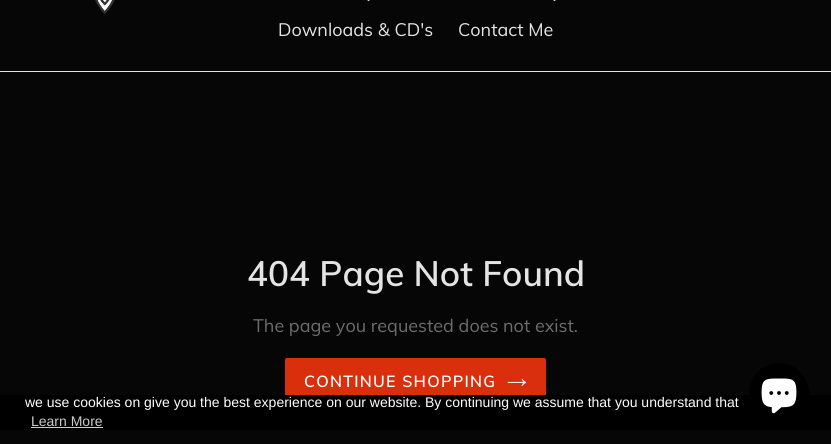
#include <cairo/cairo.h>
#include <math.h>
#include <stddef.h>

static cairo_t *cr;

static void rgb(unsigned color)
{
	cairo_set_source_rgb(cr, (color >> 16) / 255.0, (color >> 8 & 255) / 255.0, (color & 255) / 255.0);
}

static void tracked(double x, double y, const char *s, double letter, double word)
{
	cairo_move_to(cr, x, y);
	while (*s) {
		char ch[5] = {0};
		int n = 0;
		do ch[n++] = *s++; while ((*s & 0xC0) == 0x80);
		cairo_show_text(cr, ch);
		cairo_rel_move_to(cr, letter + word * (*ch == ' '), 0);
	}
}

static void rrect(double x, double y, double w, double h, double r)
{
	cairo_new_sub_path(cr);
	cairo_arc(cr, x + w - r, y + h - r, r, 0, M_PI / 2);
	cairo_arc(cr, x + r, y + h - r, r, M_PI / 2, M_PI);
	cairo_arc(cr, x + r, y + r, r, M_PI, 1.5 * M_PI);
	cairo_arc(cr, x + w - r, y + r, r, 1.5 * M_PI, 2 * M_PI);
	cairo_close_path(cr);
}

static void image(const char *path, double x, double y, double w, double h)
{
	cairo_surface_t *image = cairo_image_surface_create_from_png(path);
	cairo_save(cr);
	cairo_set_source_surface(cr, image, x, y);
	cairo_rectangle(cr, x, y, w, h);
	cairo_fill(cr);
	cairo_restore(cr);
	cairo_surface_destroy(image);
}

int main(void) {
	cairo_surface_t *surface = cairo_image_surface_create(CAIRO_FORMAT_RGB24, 831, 444);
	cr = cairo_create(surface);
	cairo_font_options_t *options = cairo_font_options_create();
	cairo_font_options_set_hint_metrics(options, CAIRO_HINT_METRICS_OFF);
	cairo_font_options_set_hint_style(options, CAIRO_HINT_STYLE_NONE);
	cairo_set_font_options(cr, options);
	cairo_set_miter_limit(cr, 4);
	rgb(0x070606);
	cairo_paint(cr);
	rgb(0xe4e4e4);
	cairo_rectangle(cr, 0, 71, 831, 1);
	cairo_fill(cr);
	image("img/1.png", 95, 0, 20, 14);
	image("img/2.png", 367, 0, 3, 1);
	image("img/2.png", 553, 0, 3, 1);
	rgb(0xda2f0c);
	rrect(285, 358, 261, 46, 2);
	cairo_fill(cr);
	image("img/3.png", 507, 378, 20, 8);
	rgb(0x000000);
	cairo_rectangle(cr, 0, 395, 831, 35);
	cairo_fill(cr);
	cairo_arc(cr, 779, 393, 30, 0, 2 * M_PI);
	cairo_fill(cr);
	image("img/4.png", 761, 378, 36, 36);
	rgb(0xcccccc);
	cairo_rectangle(cr, 31, 427, 72, 1);
	cairo_fill(cr);
	cairo_select_font_face(cr, "Muli", CAIRO_FONT_SLANT_NORMAL, CAIRO_FONT_WEIGHT_NORMAL);
	cairo_set_font_size(cr, 18);
	rgb(0xe4e4e4);
	cairo_move_to(cr, 278, 36);
	cairo_show_text(cr, "Downloads & CD's");
	cairo_move_to(cr, 458, 36);
	cairo_show_text(cr, "Contact Me");
	cairo_select_font_face(cr, "Muli SemiBold", CAIRO_FONT_SLANT_NORMAL, CAIRO_FONT_WEIGHT_NORMAL);
	cairo_set_font_size(cr, 35);
	cairo_move_to(cr, 247, 286);
	cairo_show_text(cr, "404 Page Not Found");
	cairo_select_font_face(cr, "Muli", CAIRO_FONT_SLANT_NORMAL, CAIRO_FONT_WEIGHT_NORMAL);
	cairo_set_font_size(cr, 18);
	rgb(0x6d6d6d);
	cairo_move_to(cr, 253, 332);
	cairo_show_text(cr, "The page you requested does not exist.");
	cairo_select_font_face(cr, "Muli SemiBold", CAIRO_FONT_SLANT_NORMAL, CAIRO_FONT_WEIGHT_NORMAL);
	cairo_set_font_size(cr, 16);
	rgb(0xffffff);
	tracked(304, 387, "CONTINUE SHOPPING", 1.25, 0);
	cairo_select_font_face(cr, "Liberation Sans", CAIRO_FONT_SLANT_NORMAL, CAIRO_FONT_WEIGHT_NORMAL);
	cairo_set_font_size(cr, 14);
	cairo_move_to(cr, 25, 407);
	cairo_show_text(cr, "we use cookies on give you the best experience on our website. By continuing we assume that you understand that");
	rgb(0xcccccc);
	cairo_move_to(cr, 31, 426);
	cairo_show_text(cr, "Learn More");
	cairo_surface_write_to_png(surface, "page.png");
	cairo_font_options_destroy(options);
	cairo_destroy(cr);
	cairo_surface_destroy(surface);
	return 0;
}
